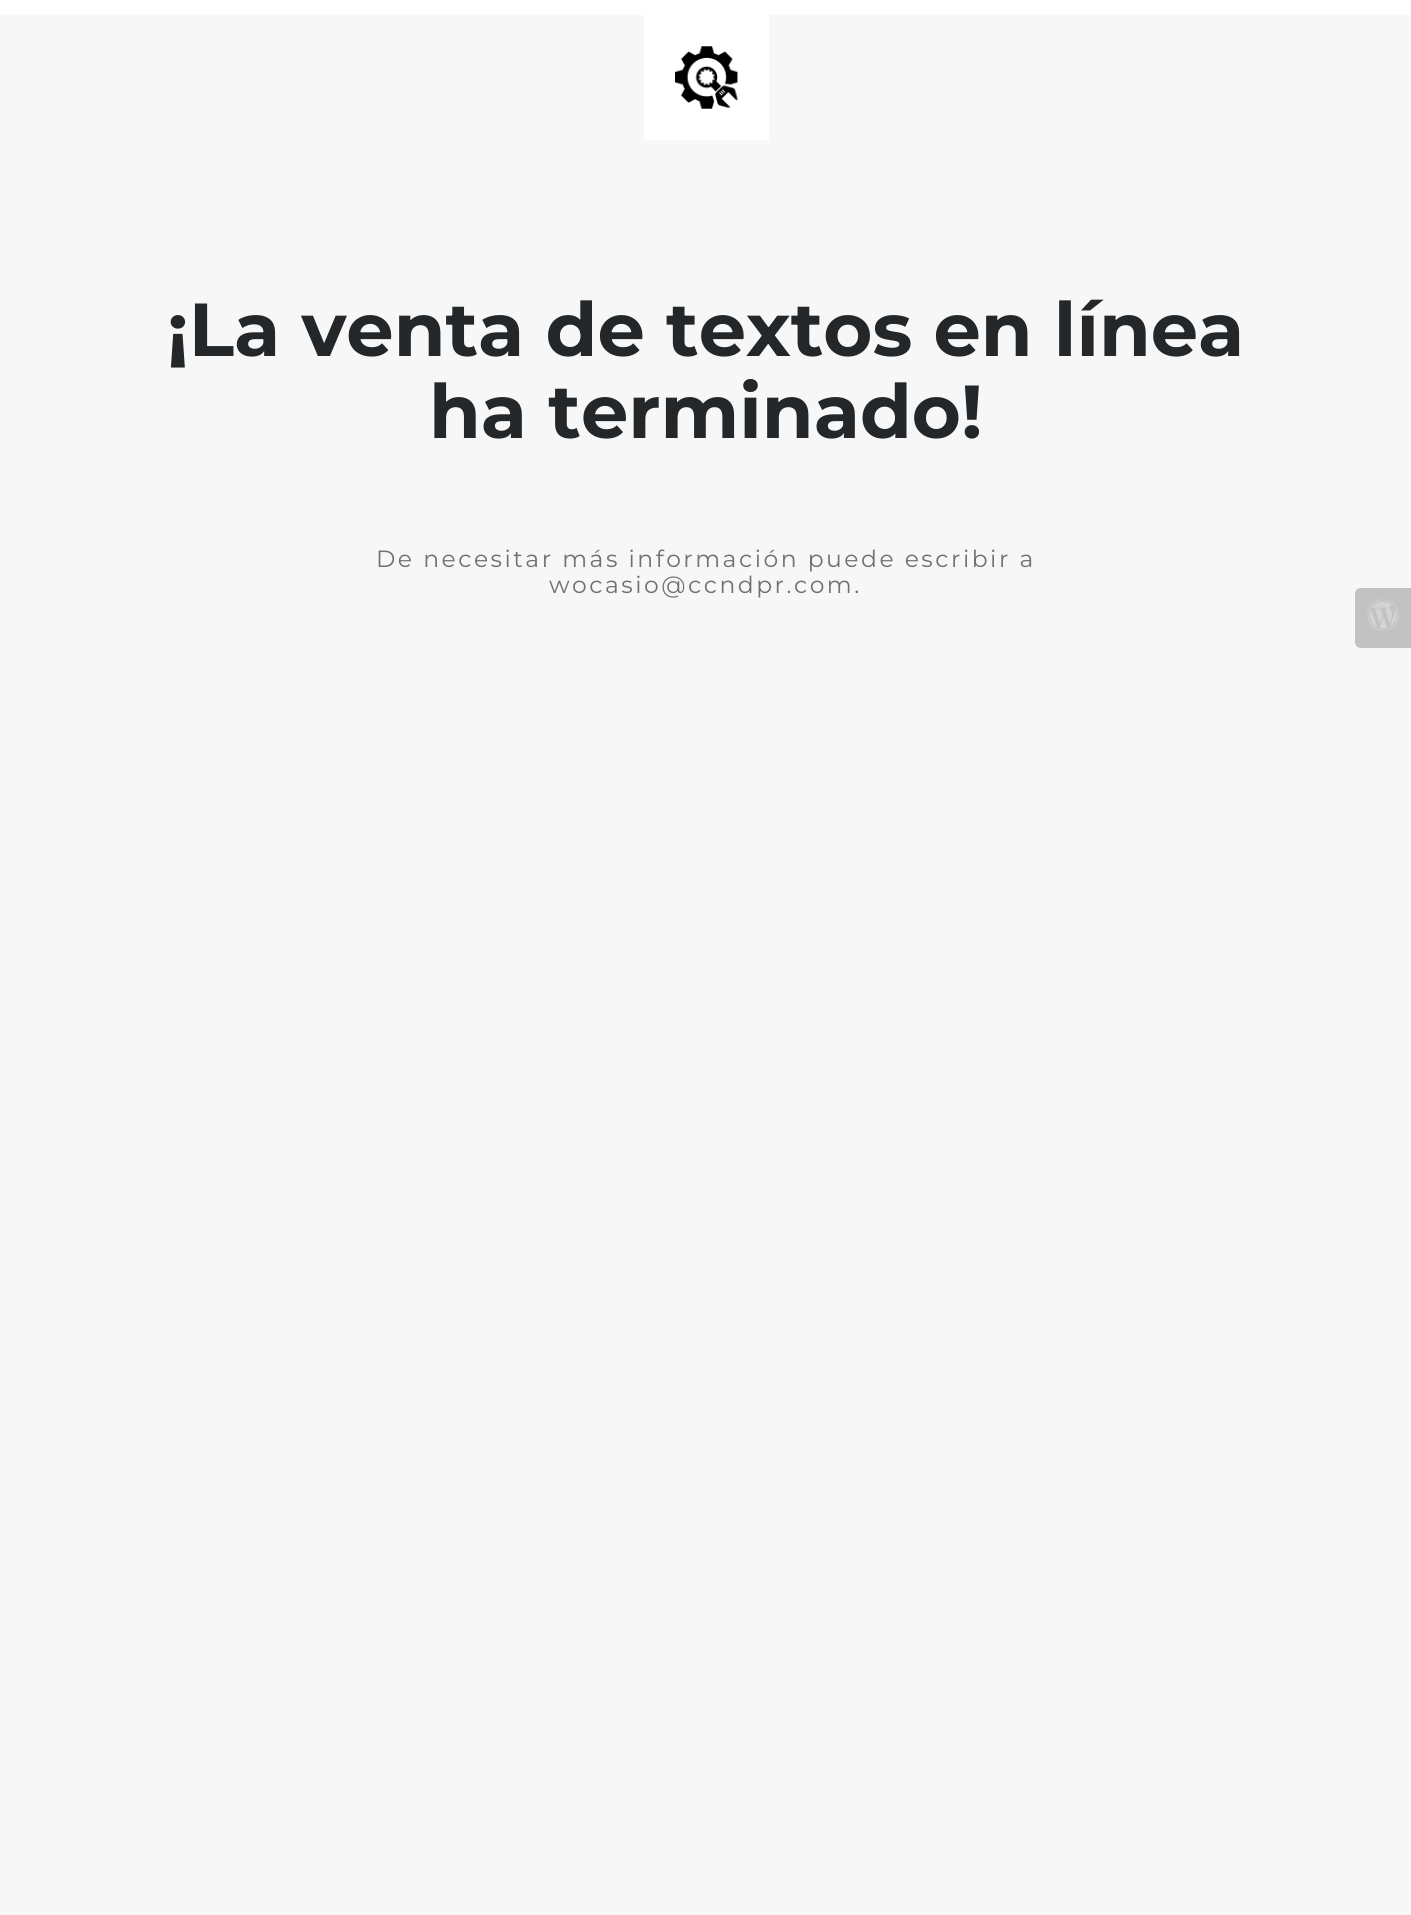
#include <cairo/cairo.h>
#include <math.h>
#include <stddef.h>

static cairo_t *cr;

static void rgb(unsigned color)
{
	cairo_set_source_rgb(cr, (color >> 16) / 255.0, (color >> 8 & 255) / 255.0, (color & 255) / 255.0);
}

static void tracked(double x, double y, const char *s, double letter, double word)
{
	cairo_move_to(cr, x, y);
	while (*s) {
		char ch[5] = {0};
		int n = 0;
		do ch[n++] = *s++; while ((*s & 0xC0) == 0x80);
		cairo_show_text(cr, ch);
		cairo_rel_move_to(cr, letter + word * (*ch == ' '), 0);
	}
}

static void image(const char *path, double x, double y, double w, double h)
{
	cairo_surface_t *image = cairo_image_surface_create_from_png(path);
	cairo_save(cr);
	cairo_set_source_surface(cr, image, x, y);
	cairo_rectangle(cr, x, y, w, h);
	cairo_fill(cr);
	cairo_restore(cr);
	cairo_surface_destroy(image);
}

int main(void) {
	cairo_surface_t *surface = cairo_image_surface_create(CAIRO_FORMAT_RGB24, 1411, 1915);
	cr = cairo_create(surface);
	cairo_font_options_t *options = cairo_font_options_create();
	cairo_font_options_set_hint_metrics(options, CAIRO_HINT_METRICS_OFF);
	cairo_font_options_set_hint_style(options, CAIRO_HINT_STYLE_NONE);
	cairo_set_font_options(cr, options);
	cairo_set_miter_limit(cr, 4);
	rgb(0xf7f7f7);
	cairo_paint(cr);
	rgb(0xffffff);
	cairo_rectangle(cr, 0, 0, 1411, 15);
	cairo_fill(cr);
	cairo_rectangle(cr, 644, 15, 125, 125);
	cairo_fill(cr);
	image("img/1.png", 675, 46, 63, 63);
	rgb(0xc2c2c2);
	cairo_new_path(cr);
	cairo_move_to(cr, 1361, 588);
	cairo_line_to(cr, 1411, 588);
	cairo_line_to(cr, 1411, 648);
	cairo_line_to(cr, 1361, 648);
	cairo_curve_to(cr, 1357.5, 648, 1355, 645.5, 1355, 642);
	cairo_line_to(cr, 1355, 594);
	cairo_curve_to(cr, 1355, 590.5, 1357.5, 588, 1361, 588);
	cairo_close_path(cr);
	cairo_fill(cr);
	image("img/2.png", 1367, 599, 32, 32);
	cairo_select_font_face(cr, "Montserrat Thin", CAIRO_FONT_SLANT_NORMAL, CAIRO_FONT_WEIGHT_NORMAL);
	cairo_set_font_size(cr, 75);
	rgb(0x23272a);
	cairo_move_to(cr, 167, 356);
	cairo_show_text(cr, "¡La venta de textos en línea");
	cairo_move_to(cr, 429, 438);
	cairo_show_text(cr, "ha terminado!");
	cairo_select_font_face(cr, "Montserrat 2 Thin", CAIRO_FONT_SLANT_NORMAL, CAIRO_FONT_WEIGHT_NORMAL);
	cairo_set_font_size(cr, 23.45);
	rgb(0x707070);
	tracked(376, 567, "De necesitar más información puede escribir a", 2.5, 0);
	tracked(549, 593, "wocasio@ccndpr.com.", 2.5, 0);
	cairo_surface_write_to_png(surface, "page.png");
	cairo_font_options_destroy(options);
	cairo_destroy(cr);
	cairo_surface_destroy(surface);
	return 0;
}
